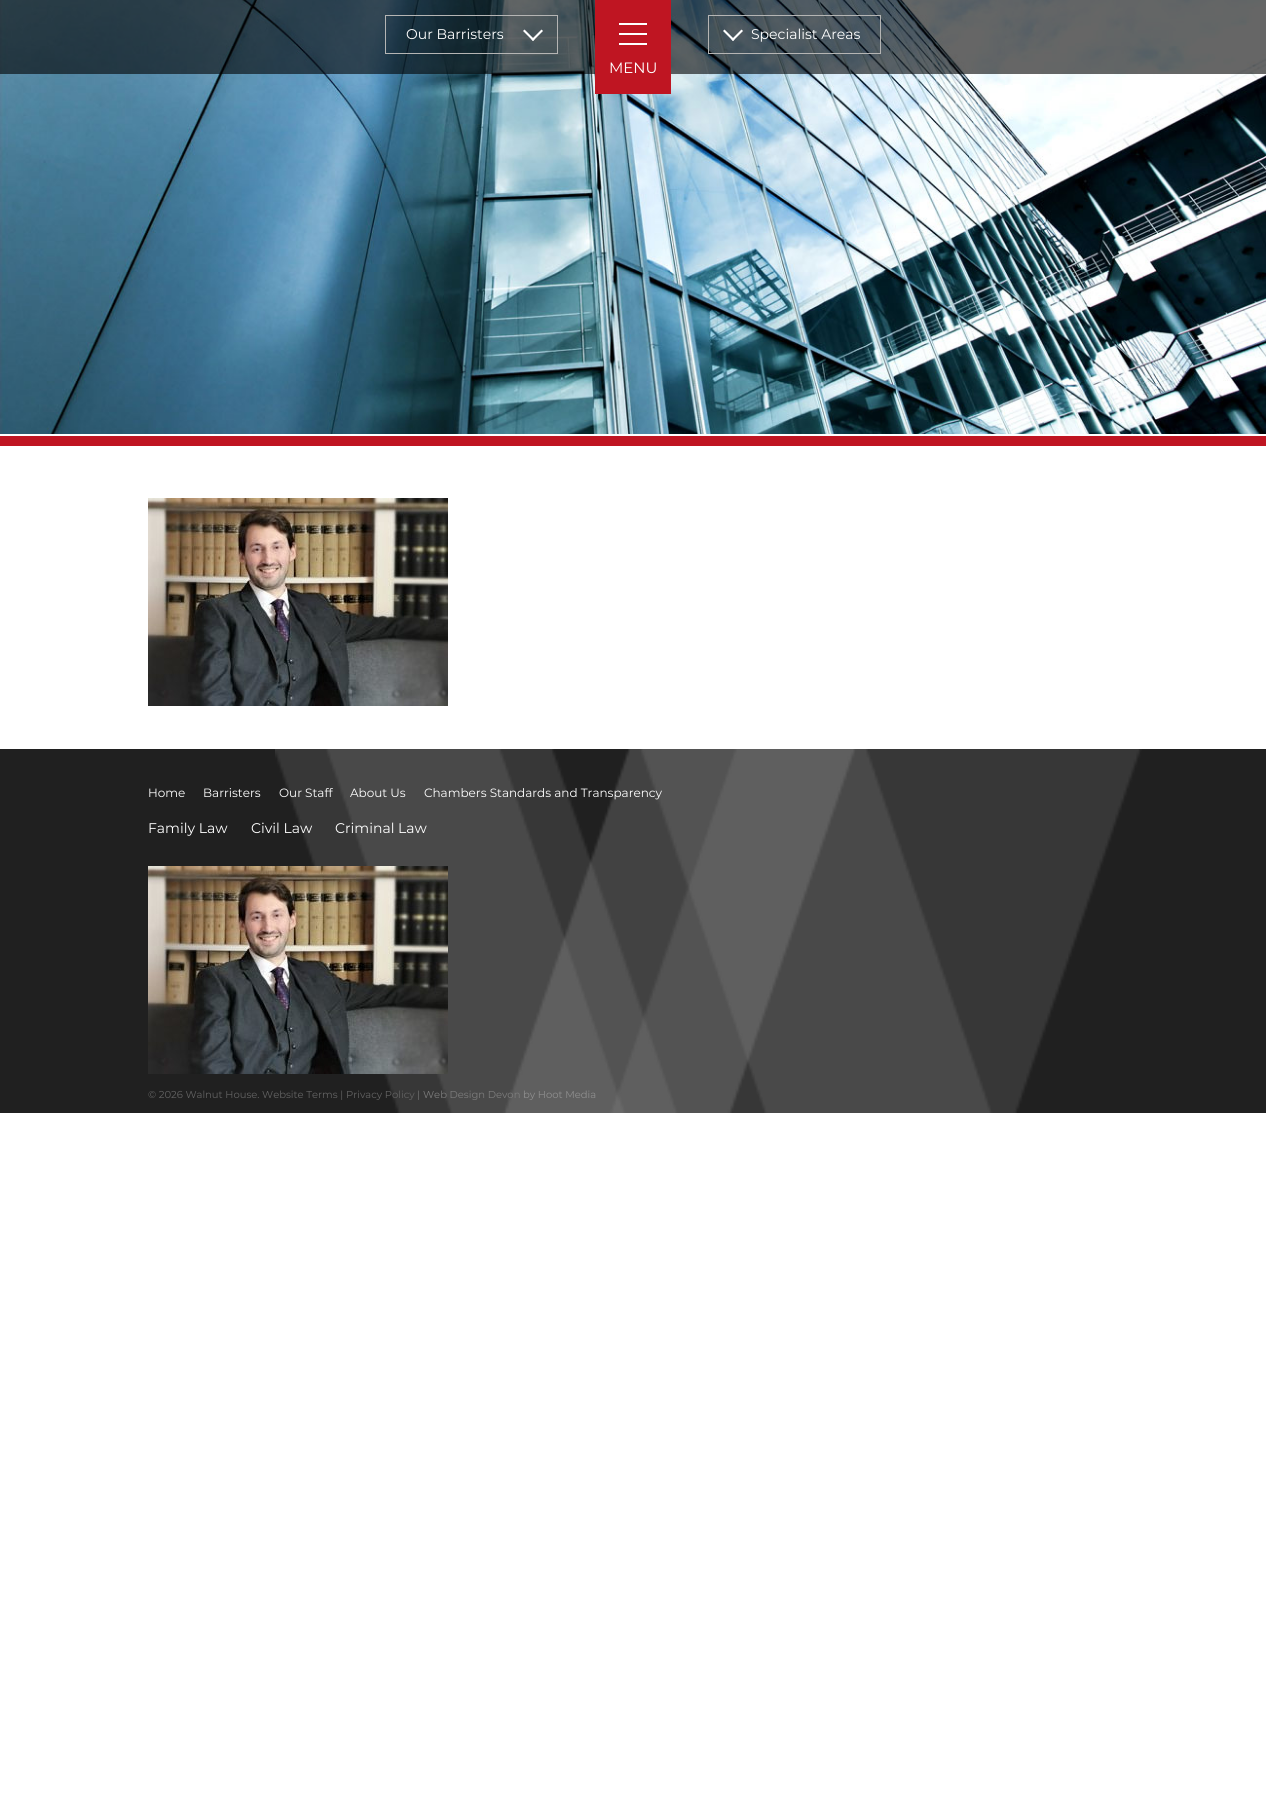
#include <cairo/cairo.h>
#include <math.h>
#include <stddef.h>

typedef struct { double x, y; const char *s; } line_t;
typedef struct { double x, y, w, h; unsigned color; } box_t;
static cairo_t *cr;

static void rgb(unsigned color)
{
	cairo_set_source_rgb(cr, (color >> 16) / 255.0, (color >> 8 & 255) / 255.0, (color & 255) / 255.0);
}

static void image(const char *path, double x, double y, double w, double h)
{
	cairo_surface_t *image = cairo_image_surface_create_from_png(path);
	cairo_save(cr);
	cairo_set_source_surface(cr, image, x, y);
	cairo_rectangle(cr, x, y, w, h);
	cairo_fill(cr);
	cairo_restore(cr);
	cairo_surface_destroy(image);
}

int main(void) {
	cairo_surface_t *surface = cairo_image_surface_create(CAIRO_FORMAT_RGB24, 1266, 1797);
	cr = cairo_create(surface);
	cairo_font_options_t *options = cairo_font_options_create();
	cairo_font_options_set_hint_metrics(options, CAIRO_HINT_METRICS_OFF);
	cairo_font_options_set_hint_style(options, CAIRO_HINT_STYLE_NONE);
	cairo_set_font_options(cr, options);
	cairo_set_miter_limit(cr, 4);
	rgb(0xffffff);
	cairo_paint(cr);
	rgb(0xbf1522);
	cairo_rectangle(cr, 0, 436, 1266, 10);
	cairo_fill(cr);
	image("img/1.png", 0, 0, 1266, 434);
	cairo_set_source_rgba(cr, 0, 0, 0, 0.6);
	cairo_rectangle(cr, 0, 0, 1266, 74);
	cairo_fill(cr);
	cairo_rectangle(cr, 385.5, 15.5, 172, 38);
	rgb(0xb5b5b4);
	cairo_set_line_width(cr, 1);
	cairo_stroke(cr);
	rgb(0xffffff);
	cairo_new_path(cr);
	cairo_move_to(cr, 543, 31);
	cairo_line_to(cr, 533, 41);
	cairo_line_to(cr, 531.5, 39.5);
	cairo_line_to(cr, 541.5, 29.5);
	cairo_close_path(cr);
	cairo_fill(cr);
	cairo_new_path(cr);
	cairo_move_to(cr, 534.5, 39.5);
	cairo_line_to(cr, 533, 41);
	cairo_line_to(cr, 523, 31);
	cairo_line_to(cr, 524.5, 29.5);
	cairo_close_path(cr);
	cairo_fill(cr);
	cairo_rectangle(cr, 708.5, 15.5, 172, 38);
	rgb(0xb5b5b4);
	cairo_stroke(cr);
	rgb(0xffffff);
	cairo_new_path(cr);
	cairo_move_to(cr, 743, 31);
	cairo_line_to(cr, 733, 41);
	cairo_line_to(cr, 731.5, 39.5);
	cairo_line_to(cr, 741.5, 29.5);
	cairo_close_path(cr);
	cairo_fill(cr);
	cairo_new_path(cr);
	cairo_move_to(cr, 734.5, 39.5);
	cairo_line_to(cr, 733, 41);
	cairo_line_to(cr, 723, 31);
	cairo_line_to(cr, 724.5, 29.5);
	cairo_close_path(cr);
	cairo_fill(cr);
	{
		static const box_t items[] = {
			{595, 0, 76, 94, 0xbf1522},
			{619, 23, 28, 2, 0xffffff},
			{619, 33, 28, 2, 0xffffff},
			{619, 43, 28, 2, 0xffffff},
		};
		for (size_t i = 0; i < sizeof items / sizeof *items; i++) {
			rgb(items[i].color);
			cairo_rectangle(cr, items[i].x, items[i].y, items[i].w, items[i].h);
			cairo_fill(cr);
		}
	}
	image("img/2.png", 148, 498, 300, 208);
	rgb(0x202020);
	cairo_rectangle(cr, 0, 749, 1266, 364);
	cairo_fill(cr);
	image("img/3.png", 275, 749, 867, 364);
	image("img/2.png", 148, 866, 300, 208);
	cairo_select_font_face(cr, "Montserrat", CAIRO_FONT_SLANT_NORMAL, CAIRO_FONT_WEIGHT_NORMAL);
	cairo_set_font_size(cr, 14);
	rgb(0xffffff);
	cairo_move_to(cr, 406, 39);
	cairo_show_text(cr, "Our Barristers");
	cairo_move_to(cr, 751, 39);
	cairo_show_text(cr, "Specialist Areas");
	cairo_set_font_size(cr, 15);
	cairo_move_to(cr, 609, 73);
	cairo_show_text(cr, "MENU");
	cairo_set_font_size(cr, 12);
	{
		static const line_t items[] = {
			{148, 797, "Home"},
			{203, 797, "Barristers"},
			{279, 797, "Our Staff"},
			{350, 797, "About Us"},
			{424, 797, "Chambers Standards and Transparency"},
		};
		for (size_t i = 0; i < sizeof items / sizeof *items; i++) {
			cairo_move_to(cr, items[i].x, items[i].y);
			cairo_show_text(cr, items[i].s);
		}
	}
	cairo_set_font_size(cr, 14);
	{
		static const line_t items[] = {
			{148, 833, "Family Law"},
			{251, 833, "Civil Law"},
			{335, 833, "Criminal Law"},
		};
		for (size_t i = 0; i < sizeof items / sizeof *items; i++) {
			cairo_move_to(cr, items[i].x, items[i].y);
			cairo_show_text(cr, items[i].s);
		}
	}
	cairo_set_font_size(cr, 10);
	rgb(0x636363);
	cairo_move_to(cr, 148, 1098);
	cairo_show_text(cr, "© 2026 Walnut House. Website Terms |");
	cairo_move_to(cr, 346, 1098);
	cairo_show_text(cr, "Privacy Policy");
	rgb(0x737373);
	cairo_move_to(cr, 417, 1098);
	cairo_show_text(cr, "|");
	rgb(0x7d7d7d);
	cairo_move_to(cr, 423, 1098);
	cairo_show_text(cr, "Web Design Devon");
	rgb(0x8f8f8f);
	cairo_move_to(cr, 523, 1098);
	cairo_show_text(cr, "by Hoot Media");
	cairo_surface_write_to_png(surface, "page.png");
	cairo_font_options_destroy(options);
	cairo_destroy(cr);
	cairo_surface_destroy(surface);
	return 0;
}
